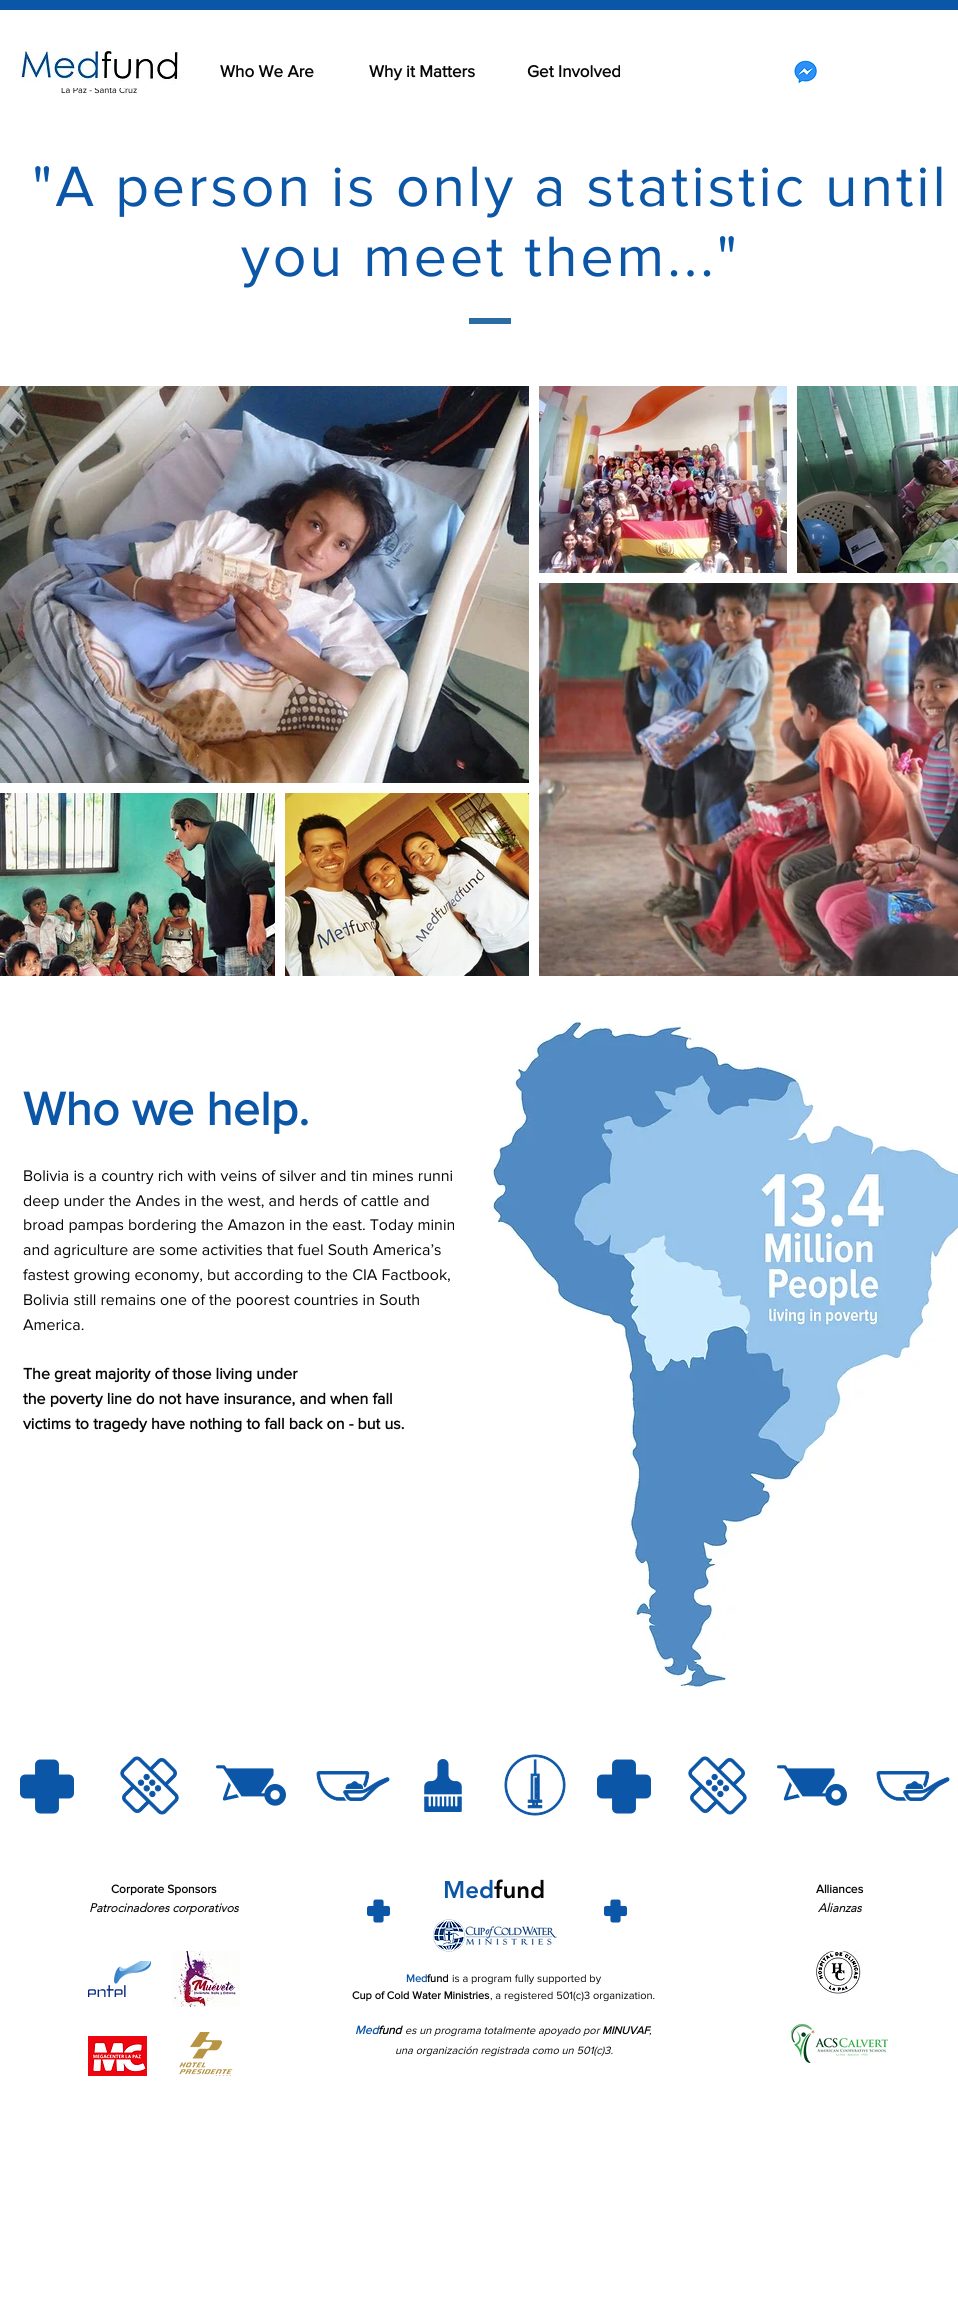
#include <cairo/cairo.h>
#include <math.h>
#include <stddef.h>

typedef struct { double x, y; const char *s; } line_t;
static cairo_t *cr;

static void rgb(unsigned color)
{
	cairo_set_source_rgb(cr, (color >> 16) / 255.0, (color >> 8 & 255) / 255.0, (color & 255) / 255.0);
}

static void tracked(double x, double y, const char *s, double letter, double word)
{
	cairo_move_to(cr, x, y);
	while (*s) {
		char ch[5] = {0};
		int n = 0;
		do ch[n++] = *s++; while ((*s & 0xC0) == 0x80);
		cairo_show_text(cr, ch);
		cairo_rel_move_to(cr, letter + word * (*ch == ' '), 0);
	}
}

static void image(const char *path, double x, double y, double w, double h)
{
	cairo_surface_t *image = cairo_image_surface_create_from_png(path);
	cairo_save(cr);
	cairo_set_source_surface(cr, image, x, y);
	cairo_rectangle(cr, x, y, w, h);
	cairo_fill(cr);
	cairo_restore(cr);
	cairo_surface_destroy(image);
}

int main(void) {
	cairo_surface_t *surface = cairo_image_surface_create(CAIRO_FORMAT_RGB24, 958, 2303);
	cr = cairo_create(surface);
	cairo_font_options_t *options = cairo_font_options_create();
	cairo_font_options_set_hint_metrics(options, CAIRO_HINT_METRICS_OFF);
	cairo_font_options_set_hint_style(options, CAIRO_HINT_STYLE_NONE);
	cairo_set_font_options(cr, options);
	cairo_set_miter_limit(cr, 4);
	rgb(0xffffff);
	cairo_paint(cr);
	rgb(0x0c56a7);
	cairo_rectangle(cr, 0, 0, 958, 10);
	cairo_fill(cr);
	image("img/2.png", 794, 60, 23, 24);
	rgb(0x2b6ca3);
	cairo_rectangle(cr, 469, 318, 42, 6);
	cairo_fill(cr);
	image("img/3.png", 0, 386, 529, 397);
	image("img/4.png", 0, 793, 275, 183);
	image("img/5.png", 285, 793, 244, 183);
	image("img/6.png", 539, 386, 248, 187);
	image("img/7.png", 797, 386, 161, 187);
	image("img/8.png", 539, 583, 419, 393);
	image("img/10.png", 20, 1759, 54, 55);
	image("img/11.png", 120, 1756, 59, 59);
	image("img/12.png", 216, 1765, 70, 41);
	image("img/13.png", 316, 1771, 74, 30);
	image("img/14.png", 424, 1759, 38, 53);
	image("img/15.png", 504, 1754, 62, 62);
	image("img/10.png", 597, 1759, 54, 55);
	image("img/11.png", 688, 1756, 59, 59);
	image("img/12.png", 777, 1765, 70, 41);
	image("img/13.png", 876, 1771, 74, 30);
	image("img/16.png", 367, 1899, 23, 24);
	image("img/16.png", 604, 1899, 23, 24);
	image("img/17.png", 433, 1919, 124, 33);
	image("img/18.png", 88, 1961, 63, 36);
	image("img/19.png", 172, 1951, 68, 56);
	image("img/20.png", 815, 1951, 48, 43);
	image("img/21.png", 88, 2036, 59, 40);
	image("img/22.png", 179, 2032, 54, 44);
	image("img/23.png", 791, 2024, 97, 39);
	cairo_select_font_face(cr, "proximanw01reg", CAIRO_FONT_SLANT_NORMAL, CAIRO_FONT_WEIGHT_BOLD);
	cairo_set_font_size(cr, 17);
	rgb(0x080708);
	{
		static const line_t items[] = {
			{220, 77, "Who We Are"},
			{369, 77, "Why it Matters"},
			{527, 77, "Get Involved"},
		};
		for (size_t i = 0; i < sizeof items / sizeof *items; i++) {
			cairo_move_to(cr, items[i].x, items[i].y);
			cairo_show_text(cr, items[i].s);
		}
	}
	cairo_select_font_face(cr, "proximanw01reg", CAIRO_FONT_SLANT_NORMAL, CAIRO_FONT_WEIGHT_NORMAL);
	cairo_set_font_size(cr, 9);
	cairo_move_to(cr, 61, 93);
	cairo_show_text(cr, "La Paz - Santa Cruz");
	image("img/1.png", 16, 49, 164, 39);
	cairo_set_font_size(cr, 59);
	rgb(0x0c56a7);
	tracked(32, 206, "\"A person is only a statistic until", 2.95, 0);
	tracked(241, 276, "you meet them...\"", 2.95, 0);
	cairo_select_font_face(cr, "proximanw01reg", CAIRO_FONT_SLANT_NORMAL, CAIRO_FONT_WEIGHT_BOLD);
	cairo_set_font_size(cr, 48);
	cairo_move_to(cr, 23, 1125);
	cairo_show_text(cr, "Who we help.");
	cairo_select_font_face(cr, "proximanw01reg", CAIRO_FONT_SLANT_NORMAL, CAIRO_FONT_WEIGHT_NORMAL);
	cairo_set_font_size(cr, 16);
	rgb(0x080708);
	{
		static const line_t items[] = {
			{23, 1181, "Bolivia is a country rich with veins of silver and tin mines runni"},
			{23, 1206, "deep under the Andes in the west, and herds of cattle and"},
			{23, 1230, "broad pampas bordering the Amazon in the east. Today minin"},
			{23, 1255, "and agriculture are some activities that fuel South America’s"},
			{23, 1280, "fastest growing economy, but according to the CIA Factbook,"},
			{23, 1305, "Bolivia still remains one of the poorest countries in South"},
			{23, 1330, "America."},
		};
		for (size_t i = 0; i < sizeof items / sizeof *items; i++) {
			cairo_move_to(cr, items[i].x, items[i].y);
			cairo_show_text(cr, items[i].s);
		}
	}
	cairo_select_font_face(cr, "proximanw01reg", CAIRO_FONT_SLANT_NORMAL, CAIRO_FONT_WEIGHT_BOLD);
	{
		static const line_t items[] = {
			{23, 1379, "The great majority of those living under"},
			{23, 1404, "the poverty line do not have insurance, and when fall"},
			{23, 1429, "victims to tragedy have nothing to fall back on - but us."},
		};
		for (size_t i = 0; i < sizeof items / sizeof *items; i++) {
			cairo_move_to(cr, items[i].x, items[i].y);
			cairo_show_text(cr, items[i].s);
		}
	}
	image("img/9.png", 454, 1021, 504, 669);
	cairo_set_font_size(cr, 12);
	cairo_move_to(cr, 111, 1893);
	cairo_show_text(cr, "Corporate Sponsors");
	cairo_select_font_face(cr, "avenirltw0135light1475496", CAIRO_FONT_SLANT_ITALIC, CAIRO_FONT_WEIGHT_BOLD);
	cairo_move_to(cr, 89, 1912);
	cairo_show_text(cr, "Patrocinadores corporativos");
	cairo_select_font_face(cr, "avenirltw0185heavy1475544 Black", CAIRO_FONT_SLANT_NORMAL, CAIRO_FONT_WEIGHT_NORMAL);
	cairo_set_font_size(cr, 24);
	rgb(0x0c56a7);
	cairo_move_to(cr, 443, 1898);
	cairo_show_text(cr, "Med");
	rgb(0x080708);
	cairo_move_to(cr, 494, 1898);
	cairo_show_text(cr, "fund");
	cairo_select_font_face(cr, "proximanw01reg", CAIRO_FONT_SLANT_NORMAL, CAIRO_FONT_WEIGHT_BOLD);
	cairo_set_font_size(cr, 12);
	cairo_move_to(cr, 816, 1893);
	cairo_show_text(cr, "Alliances");
	cairo_select_font_face(cr, "avenirltw0135light1475496", CAIRO_FONT_SLANT_ITALIC, CAIRO_FONT_WEIGHT_BOLD);
	cairo_move_to(cr, 818, 1912);
	cairo_show_text(cr, "Alianzas");
	cairo_select_font_face(cr, "proximanw01reg", CAIRO_FONT_SLANT_NORMAL, CAIRO_FONT_WEIGHT_BOLD);
	cairo_set_font_size(cr, 11);
	rgb(0x0c56a7);
	cairo_move_to(cr, 406, 1982);
	cairo_show_text(cr, "Med");
	rgb(0x080708);
	cairo_move_to(cr, 427, 1982);
	cairo_show_text(cr, "fund");
	cairo_select_font_face(cr, "proximanw01reg", CAIRO_FONT_SLANT_NORMAL, CAIRO_FONT_WEIGHT_NORMAL);
	cairo_move_to(cr, 452, 1982);
	cairo_show_text(cr, "is a program fully supported by");
	cairo_select_font_face(cr, "proximanw01reg", CAIRO_FONT_SLANT_NORMAL, CAIRO_FONT_WEIGHT_BOLD);
	cairo_move_to(cr, 352, 1999);
	cairo_show_text(cr, "Cup of Cold Water Ministries");
	cairo_select_font_face(cr, "proximanw01reg", CAIRO_FONT_SLANT_NORMAL, CAIRO_FONT_WEIGHT_NORMAL);
	cairo_move_to(cr, 490, 1999);
	cairo_show_text(cr, ", a registered 501(c)3 organization.");
	cairo_select_font_face(cr, "proximanw01reg", CAIRO_FONT_SLANT_ITALIC, CAIRO_FONT_WEIGHT_BOLD);
	cairo_set_font_size(cr, 12);
	rgb(0x0c56a7);
	cairo_move_to(cr, 355, 2034);
	cairo_show_text(cr, "Med");
	rgb(0x080708);
	cairo_move_to(cr, 378, 2034);
	cairo_show_text(cr, "fund");
	cairo_select_font_face(cr, "proximanw01reg", CAIRO_FONT_SLANT_ITALIC, CAIRO_FONT_WEIGHT_NORMAL);
	cairo_set_font_size(cr, 11);
	cairo_move_to(cr, 405, 2034);
	cairo_show_text(cr, "es un programa totalmente apoyado por");
	cairo_select_font_face(cr, "proximanw01reg", CAIRO_FONT_SLANT_ITALIC, CAIRO_FONT_WEIGHT_BOLD);
	cairo_move_to(cr, 602, 2034);
	cairo_show_text(cr, "MINUVAF");
	cairo_select_font_face(cr, "proximanw01reg", CAIRO_FONT_SLANT_ITALIC, CAIRO_FONT_WEIGHT_NORMAL);
	cairo_move_to(cr, 649, 2034);
	cairo_show_text(cr, ",");
	cairo_move_to(cr, 395, 2054);
	cairo_show_text(cr, "una organización registrada como un 501(c)3.");
	cairo_surface_write_to_png(surface, "page.png");
	cairo_font_options_destroy(options);
	cairo_destroy(cr);
	cairo_surface_destroy(surface);
	return 0;
}
